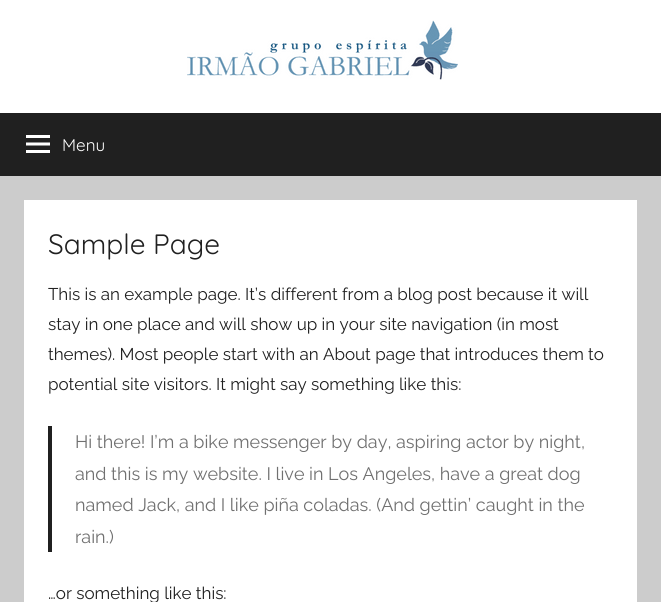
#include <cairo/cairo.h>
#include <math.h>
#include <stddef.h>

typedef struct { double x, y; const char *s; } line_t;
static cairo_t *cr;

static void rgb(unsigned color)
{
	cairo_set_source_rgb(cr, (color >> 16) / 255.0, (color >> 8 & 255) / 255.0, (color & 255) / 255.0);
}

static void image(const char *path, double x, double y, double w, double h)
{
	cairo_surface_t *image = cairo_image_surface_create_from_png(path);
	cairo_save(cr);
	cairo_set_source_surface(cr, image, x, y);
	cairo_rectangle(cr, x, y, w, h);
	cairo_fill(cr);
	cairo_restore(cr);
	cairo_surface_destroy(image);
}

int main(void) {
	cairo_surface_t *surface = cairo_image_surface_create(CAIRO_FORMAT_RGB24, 661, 602);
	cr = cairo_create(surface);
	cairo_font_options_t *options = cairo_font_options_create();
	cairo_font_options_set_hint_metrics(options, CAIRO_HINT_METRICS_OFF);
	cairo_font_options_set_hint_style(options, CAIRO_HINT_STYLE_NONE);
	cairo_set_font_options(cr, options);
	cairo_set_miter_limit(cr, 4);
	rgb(0xcccccc);
	cairo_paint(cr);
	rgb(0xffffff);
	cairo_rectangle(cr, 0, 0, 661, 113);
	cairo_fill(cr);
	image("img/1.png", 187, 20, 271, 60);
	rgb(0x202020);
	cairo_rectangle(cr, 0, 113, 661, 63);
	cairo_fill(cr);
	image("img/2.png", 26, 135, 24, 18);
	rgb(0xffffff);
	cairo_rectangle(cr, 24, 200, 613, 402);
	cairo_fill(cr);
	rgb(0x202020);
	cairo_rectangle(cr, 48, 426, 4, 126);
	cairo_fill(cr);
	cairo_select_font_face(cr, "Quicksand", CAIRO_FONT_SLANT_NORMAL, CAIRO_FONT_WEIGHT_NORMAL);
	cairo_set_font_size(cr, 17);
	rgb(0xffffff);
	cairo_move_to(cr, 62, 151);
	cairo_show_text(cr, "Menu");
	cairo_set_font_size(cr, 28);
	rgb(0x202020);
	cairo_move_to(cr, 48, 254);
	cairo_show_text(cr, "Sample Page");
	cairo_select_font_face(cr, "Raleway", CAIRO_FONT_SLANT_NORMAL, CAIRO_FONT_WEIGHT_NORMAL);
	cairo_set_font_size(cr, 17);
	{
		static const line_t items[] = {
			{48, 300, "This is an example page. It’s different from a blog post because it will"},
			{48, 330, "stay in one place and will show up in your site navigation (in most"},
			{48, 360, "themes). Most people start with an About page that introduces them to"},
			{48, 390, "potential site visitors. It might say something like this:"},
		};
		for (size_t i = 0; i < sizeof items / sizeof *items; i++) {
			cairo_move_to(cr, items[i].x, items[i].y);
			cairo_show_text(cr, items[i].s);
		}
	}
	cairo_set_font_size(cr, 18);
	rgb(0x707070);
	{
		static const line_t items[] = {
			{75, 448, "Hi there! I’m a bike messenger by day, aspiring actor by night,"},
			{75, 480, "and this is my website. I live in Los Angeles, have a great dog"},
			{75, 511, "named Jack, and I like piña coladas. (And gettin’ caught in the"},
			{75, 543, "rain.)"},
		};
		for (size_t i = 0; i < sizeof items / sizeof *items; i++) {
			cairo_move_to(cr, items[i].x, items[i].y);
			cairo_show_text(cr, items[i].s);
		}
	}
	cairo_set_font_size(cr, 17);
	rgb(0x202020);
	cairo_move_to(cr, 48, 599);
	cairo_show_text(cr, "…or something like this:");
	cairo_surface_write_to_png(surface, "page.png");
	cairo_font_options_destroy(options);
	cairo_destroy(cr);
	cairo_surface_destroy(surface);
	return 0;
}
